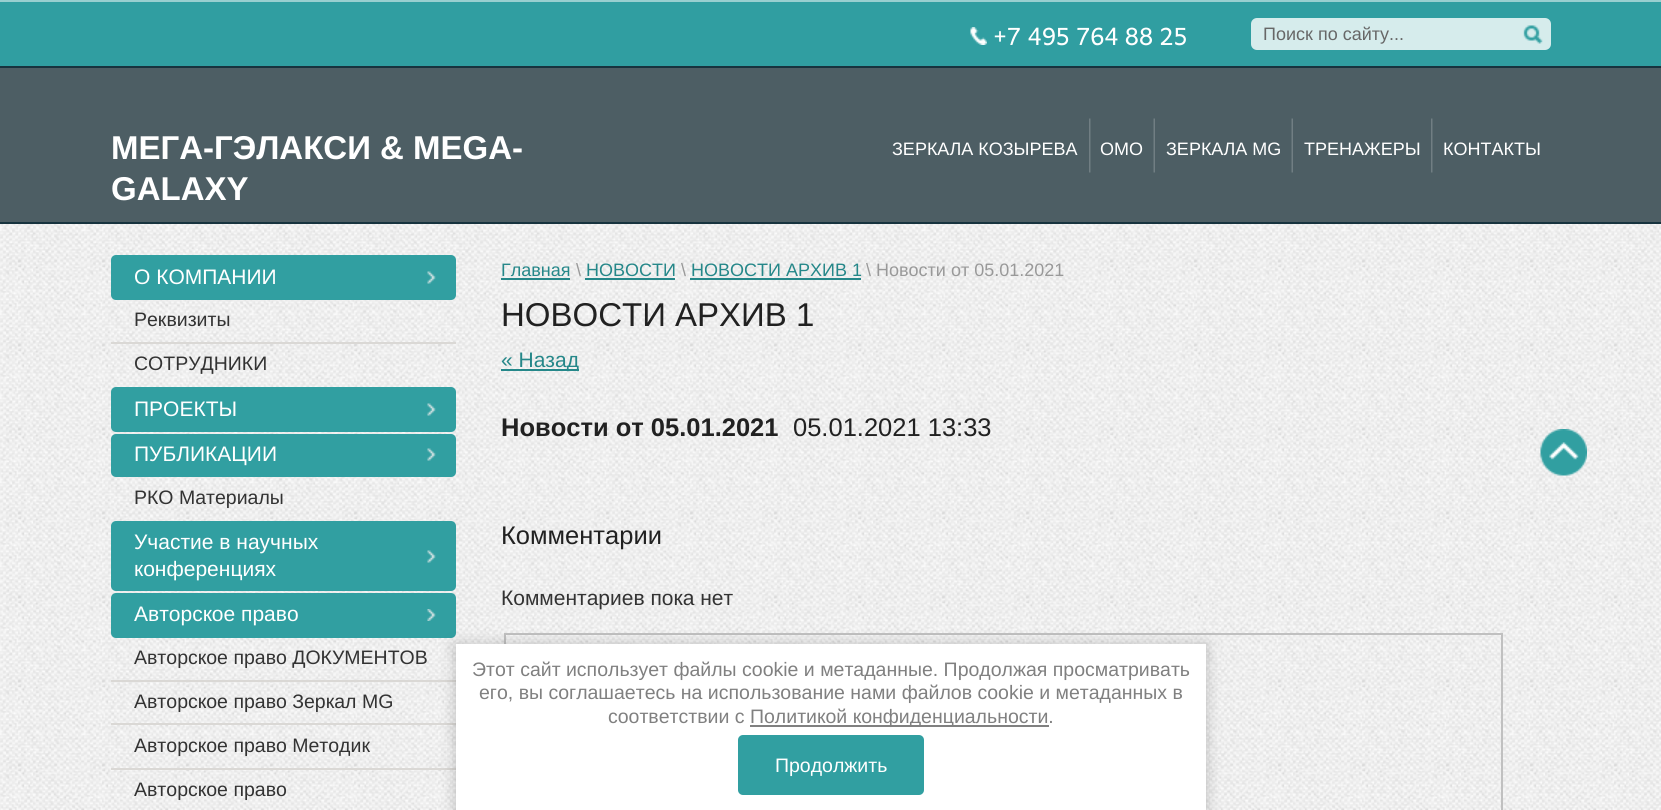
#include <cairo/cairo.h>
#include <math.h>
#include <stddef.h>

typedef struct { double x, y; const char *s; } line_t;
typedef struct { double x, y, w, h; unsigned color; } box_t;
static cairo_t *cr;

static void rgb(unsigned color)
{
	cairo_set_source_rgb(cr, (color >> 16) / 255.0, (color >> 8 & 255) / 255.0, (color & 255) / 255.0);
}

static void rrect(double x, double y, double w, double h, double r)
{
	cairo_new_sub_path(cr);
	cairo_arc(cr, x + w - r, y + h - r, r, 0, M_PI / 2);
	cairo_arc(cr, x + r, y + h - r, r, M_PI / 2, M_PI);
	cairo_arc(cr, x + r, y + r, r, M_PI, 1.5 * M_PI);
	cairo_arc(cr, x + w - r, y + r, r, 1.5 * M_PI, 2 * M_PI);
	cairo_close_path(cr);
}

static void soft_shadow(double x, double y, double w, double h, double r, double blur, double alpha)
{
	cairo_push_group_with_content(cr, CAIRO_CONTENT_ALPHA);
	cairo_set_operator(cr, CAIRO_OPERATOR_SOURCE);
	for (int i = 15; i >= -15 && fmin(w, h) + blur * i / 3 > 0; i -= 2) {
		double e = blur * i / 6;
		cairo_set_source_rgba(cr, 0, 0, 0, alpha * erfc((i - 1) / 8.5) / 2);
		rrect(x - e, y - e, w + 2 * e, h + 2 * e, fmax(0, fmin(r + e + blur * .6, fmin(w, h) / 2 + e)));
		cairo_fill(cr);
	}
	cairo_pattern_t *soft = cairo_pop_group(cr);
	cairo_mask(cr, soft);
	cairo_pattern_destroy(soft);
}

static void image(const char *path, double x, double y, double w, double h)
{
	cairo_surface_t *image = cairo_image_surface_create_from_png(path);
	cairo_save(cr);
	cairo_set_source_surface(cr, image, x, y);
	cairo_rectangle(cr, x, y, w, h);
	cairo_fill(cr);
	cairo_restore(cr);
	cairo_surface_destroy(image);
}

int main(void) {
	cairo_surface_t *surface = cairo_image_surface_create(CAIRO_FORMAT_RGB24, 1661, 810);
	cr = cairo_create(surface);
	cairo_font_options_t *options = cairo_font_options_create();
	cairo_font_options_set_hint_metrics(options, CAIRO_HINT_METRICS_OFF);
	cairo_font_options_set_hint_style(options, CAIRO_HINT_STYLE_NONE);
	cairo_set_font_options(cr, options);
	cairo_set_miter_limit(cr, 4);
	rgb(0xffffff);
	cairo_paint(cr);
	image("img/1.png", 0, 224, 1661, 586);
	{
		static const box_t items[] = {
			{0, 68, 1661, 154, 0x4d5e64},
			{0, 222, 1661, 2, 0x17333e},
			{0, 2, 1661, 64, 0x309ea1},
			{0, 0, 1661, 2, 0x98cfd0},
			{0, 66, 1661, 2, 0x17333e},
		};
		for (size_t i = 0; i < sizeof items / sizeof *items; i++) {
			rgb(items[i].color);
			cairo_rectangle(cr, items[i].x, items[i].y, items[i].w, items[i].h);
			cairo_fill(cr);
		}
	}
	image("img/2.png", 970, 27, 17, 18);
	rgb(0xd6ecec);
	rrect(1251, 18, 300, 32, 6);
	cairo_fill(cr);
	image("img/3.png", 1523, 25, 20, 19);
	image("img/4.png", 1089, 118, 2, 55);
	image("img/5.png", 1153, 118, 2, 55);
	image("img/5.png", 1291, 118, 2, 55);
	image("img/4.png", 1431, 118, 2, 55);
	rgb(0x319fa1);
	rrect(111, 255, 345, 45, 5);
	cairo_fill(cr);
	image("img/6.png", 427, 271, 9, 13);
	rgb(0xdad8d5);
	cairo_rectangle(cr, 111, 342, 345, 2);
	cairo_fill(cr);
	rgb(0x319fa1);
	rrect(111, 387, 345, 45, 5);
	cairo_fill(cr);
	image("img/6.png", 427, 403, 9, 13);
	rrect(111, 434, 345, 43, 5);
	cairo_fill(cr);
	image("img/6.png", 427, 448, 9, 13);
	rrect(111, 521, 345, 70, 5);
	cairo_fill(cr);
	image("img/6.png", 427, 550, 9, 13);
	rrect(111, 593, 345, 45, 5);
	cairo_fill(cr);
	image("img/7.png", 427, 609, 9, 12);
	{
		static const box_t items[] = {
			{111, 680, 345, 2, 0xdad8d5},
			{111, 723, 345, 2, 0xdad8d5},
			{111, 768, 345, 2, 0xdad8d5},
			{501, 278, 69, 2, 0x258789},
			{585, 278, 90, 2, 0x258789},
			{690, 278, 171, 2, 0x258789},
			{501, 369, 78, 2, 0x25888a},
		};
		for (size_t i = 0; i < sizeof items / sizeof *items; i++) {
			rgb(items[i].color);
			cairo_rectangle(cr, items[i].x, items[i].y, items[i].w, items[i].h);
			cairo_fill(cr);
		}
	}
	cairo_rectangle(cr, 505, 634, 997, 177);
	rgb(0xc0c0c0);
	cairo_stroke(cr);
	image("img/8.png", 1540, 429, 47, 47);
	rgb(0x000000);
	soft_shadow(456, 645, 750, 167, 0, 7.5, 0.23);
	rgb(0xffffff);
	cairo_rectangle(cr, 456, 644, 750, 166);
	cairo_fill(cr);
	rgb(0x808080);
	cairo_rectangle(cr, 750, 725, 299, 2);
	cairo_fill(cr);
	rgb(0x319fa1);
	rrect(738, 735, 186, 60, 5);
	cairo_fill(cr);
	cairo_select_font_face(cr, "Andika", CAIRO_FONT_SLANT_NORMAL, CAIRO_FONT_WEIGHT_NORMAL);
	cairo_set_font_size(cr, 24);
	rgb(0xffffff);
	cairo_move_to(cr, 993, 45);
	cairo_show_text(cr, "+7 495 764 88 25");
	cairo_select_font_face(cr, "Liberation Sans", CAIRO_FONT_SLANT_NORMAL, CAIRO_FONT_WEIGHT_NORMAL);
	cairo_set_font_size(cr, 18);
	rgb(0x676767);
	cairo_move_to(cr, 1263, 40);
	cairo_show_text(cr, "Поиск по сайту...");
	cairo_select_font_face(cr, "Liberation Sans", CAIRO_FONT_SLANT_NORMAL, CAIRO_FONT_WEIGHT_BOLD);
	cairo_set_font_size(cr, 33);
	rgb(0xffffff);
	cairo_move_to(cr, 111, 159);
	cairo_show_text(cr, "МЕГА-ГЭЛАКСИ & MEGA-");
	cairo_move_to(cr, 111, 200);
	cairo_show_text(cr, "GALAXY");
	cairo_select_font_face(cr, "Liberation Sans", CAIRO_FONT_SLANT_NORMAL, CAIRO_FONT_WEIGHT_NORMAL);
	cairo_set_font_size(cr, 18);
	{
		static const line_t items[] = {
			{892, 155, "ЗЕРКАЛА КОЗЫРЕВА"},
			{1100, 155, "ОМО"},
			{1166, 155, "ЗЕРКАЛА MG"},
			{1304, 155, "ТРЕНАЖЕРЫ"},
			{1443, 155, "КОНТАКТЫ"},
		};
		for (size_t i = 0; i < sizeof items / sizeof *items; i++) {
			cairo_move_to(cr, items[i].x, items[i].y);
			cairo_show_text(cr, items[i].s);
		}
	}
	cairo_set_font_size(cr, 21);
	cairo_move_to(cr, 134, 284);
	cairo_show_text(cr, "О КОМПАНИИ");
	cairo_set_font_size(cr, 19.5);
	rgb(0x333333);
	cairo_move_to(cr, 134, 326);
	cairo_show_text(cr, "Реквизиты");
	cairo_move_to(cr, 134, 370);
	cairo_show_text(cr, "СОТРУДНИКИ");
	cairo_set_font_size(cr, 21);
	rgb(0xffffff);
	cairo_move_to(cr, 134, 416);
	cairo_show_text(cr, "ПРОЕКТЫ");
	cairo_move_to(cr, 134, 461);
	cairo_show_text(cr, "ПУБЛИКАЦИИ");
	cairo_set_font_size(cr, 19.5);
	rgb(0x333333);
	cairo_move_to(cr, 134, 504);
	cairo_show_text(cr, "РКО Материалы");
	cairo_set_font_size(cr, 21);
	rgb(0xffffff);
	{
		static const line_t items[] = {
			{134, 549, "Участие в научных"},
			{134, 576, "конференциях"},
			{134, 621, "Авторское право"},
		};
		for (size_t i = 0; i < sizeof items / sizeof *items; i++) {
			cairo_move_to(cr, items[i].x, items[i].y);
			cairo_show_text(cr, items[i].s);
		}
	}
	cairo_set_font_size(cr, 19.5);
	rgb(0x333333);
	{
		static const line_t items[] = {
			{134, 664, "Авторское право ДОКУМЕНТОВ"},
			{134, 708, "Авторское право Зеркал MG"},
			{134, 752, "Авторское право Методик"},
			{134, 796, "Авторское право"},
		};
		for (size_t i = 0; i < sizeof items / sizeof *items; i++) {
			cairo_move_to(cr, items[i].x, items[i].y);
			cairo_show_text(cr, items[i].s);
		}
	}
	cairo_set_font_size(cr, 18);
	rgb(0x258789);
	cairo_move_to(cr, 501, 276);
	cairo_show_text(cr, "Главная");
	rgb(0x999999);
	cairo_move_to(cr, 576, 276);
	cairo_show_text(cr, "\\");
	rgb(0x258789);
	cairo_move_to(cr, 586, 276);
	cairo_show_text(cr, "НОВОСТИ");
	rgb(0x999999);
	cairo_move_to(cr, 681, 276);
	cairo_show_text(cr, "\\");
	rgb(0x258789);
	cairo_move_to(cr, 691, 276);
	cairo_show_text(cr, "НОВОСТИ АРХИВ 1");
	rgb(0x999999);
	cairo_move_to(cr, 866, 276);
	cairo_show_text(cr, "\\ Новости от 05.01.2021");
	cairo_set_font_size(cr, 33);
	rgb(0x212121);
	cairo_move_to(cr, 501, 326);
	cairo_show_text(cr, "НОВОСТИ АРХИВ 1");
	cairo_set_font_size(cr, 21);
	rgb(0x258789);
	cairo_move_to(cr, 501, 367);
	cairo_show_text(cr, "« Назад");
	cairo_select_font_face(cr, "Liberation Sans", CAIRO_FONT_SLANT_NORMAL, CAIRO_FONT_WEIGHT_BOLD);
	cairo_set_font_size(cr, 25.5);
	rgb(0x212121);
	cairo_move_to(cr, 501, 436);
	cairo_show_text(cr, "Новости от 05.01.2021");
	cairo_select_font_face(cr, "Liberation Sans", CAIRO_FONT_SLANT_NORMAL, CAIRO_FONT_WEIGHT_NORMAL);
	cairo_move_to(cr, 793, 436);
	cairo_show_text(cr, "05.01.2021 13:33");
	cairo_move_to(cr, 501, 544);
	cairo_show_text(cr, "Комментарии");
	cairo_set_font_size(cr, 21);
	rgb(0x333333);
	cairo_move_to(cr, 501, 605);
	cairo_show_text(cr, "Комментариев пока нет");
	cairo_set_font_size(cr, 19.5);
	rgb(0x808080);
	{
		static const line_t items[] = {
			{472, 676, "Этот сайт использует файлы cookie и метаданные. Продолжая просматривать"},
			{479, 699, "его, вы соглашаетесь на использование нами файлов cookie и метаданных в"},
			{608, 723, "соответствии с"},
			{750, 723, "Политикой конфиденциальности."},
		};
		for (size_t i = 0; i < sizeof items / sizeof *items; i++) {
			cairo_move_to(cr, items[i].x, items[i].y);
			cairo_show_text(cr, items[i].s);
		}
	}
	rgb(0xffffff);
	cairo_move_to(cr, 775, 772);
	cairo_show_text(cr, "Продолжить");
	cairo_surface_write_to_png(surface, "page.png");
	cairo_font_options_destroy(options);
	cairo_destroy(cr);
	cairo_surface_destroy(surface);
	return 0;
}
